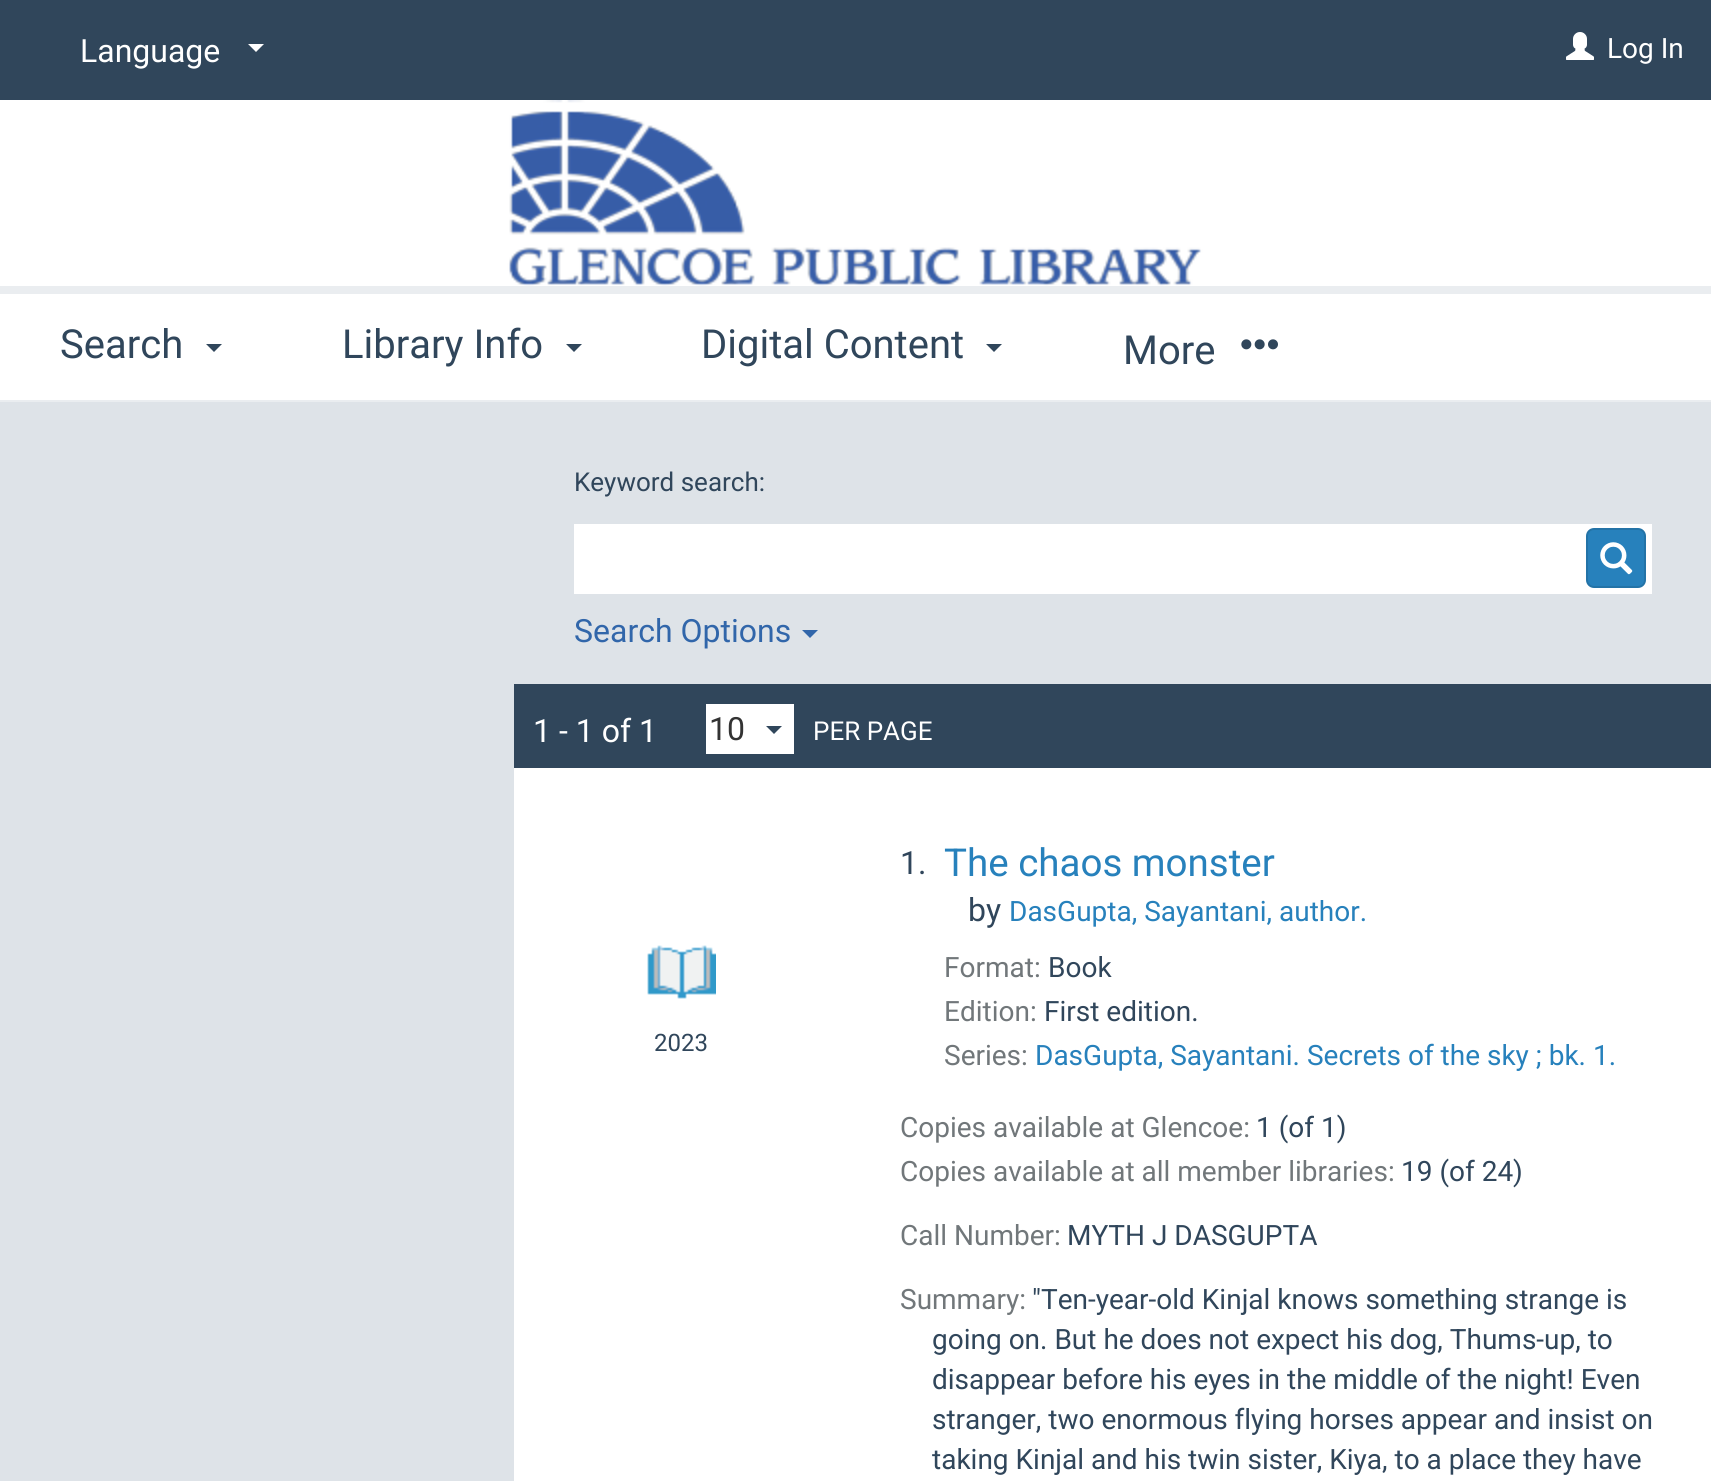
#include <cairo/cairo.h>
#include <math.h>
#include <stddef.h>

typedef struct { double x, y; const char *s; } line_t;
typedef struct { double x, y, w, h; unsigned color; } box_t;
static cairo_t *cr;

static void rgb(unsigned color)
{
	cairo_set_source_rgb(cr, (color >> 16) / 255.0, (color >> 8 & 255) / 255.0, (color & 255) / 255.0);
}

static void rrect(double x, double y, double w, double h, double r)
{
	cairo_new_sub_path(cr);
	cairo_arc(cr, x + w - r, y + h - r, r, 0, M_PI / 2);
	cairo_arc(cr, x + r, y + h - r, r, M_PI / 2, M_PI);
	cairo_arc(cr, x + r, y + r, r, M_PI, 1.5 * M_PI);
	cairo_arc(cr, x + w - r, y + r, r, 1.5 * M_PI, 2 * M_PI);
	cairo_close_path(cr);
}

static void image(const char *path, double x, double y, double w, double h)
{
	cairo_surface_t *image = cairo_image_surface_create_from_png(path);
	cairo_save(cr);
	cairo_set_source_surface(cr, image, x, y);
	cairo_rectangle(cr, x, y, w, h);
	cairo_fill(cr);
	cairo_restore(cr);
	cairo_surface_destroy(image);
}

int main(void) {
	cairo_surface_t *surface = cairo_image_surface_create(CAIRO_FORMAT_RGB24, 1711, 1481);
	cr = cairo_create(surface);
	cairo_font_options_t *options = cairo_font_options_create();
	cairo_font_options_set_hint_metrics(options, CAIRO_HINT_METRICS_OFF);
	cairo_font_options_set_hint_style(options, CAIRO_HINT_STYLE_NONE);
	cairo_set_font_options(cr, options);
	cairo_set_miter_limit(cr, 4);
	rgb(0x30465b);
	cairo_paint(cr);
	rgb(0xeaedf0);
	cairo_rectangle(cr, 0, 400, 1711, 2);
	cairo_fill(cr);
	rgb(0xffffff);
	cairo_new_path(cr);
	cairo_move_to(cr, 248, 44);
	cairo_line_to(cr, 264, 44);
	cairo_line_to(cr, 256, 52);
	cairo_close_path(cr);
	cairo_fill(cr);
	cairo_rectangle(cr, 0, 294, 1711, 106);
	cairo_fill(cr);
	rgb(0xeaedf0);
	cairo_rectangle(cr, 0, 286, 1711, 8);
	cairo_fill(cr);
	rgb(0x30465b);
	cairo_new_path(cr);
	cairo_move_to(cr, 206, 344);
	cairo_line_to(cr, 222, 344);
	cairo_line_to(cr, 214, 352);
	cairo_close_path(cr);
	cairo_fill(cr);
	cairo_new_path(cr);
	cairo_move_to(cr, 566, 344);
	cairo_line_to(cr, 582, 344);
	cairo_line_to(cr, 574, 352);
	cairo_close_path(cr);
	cairo_fill(cr);
	cairo_new_path(cr);
	cairo_move_to(cr, 986, 344);
	cairo_line_to(cr, 1002, 344);
	cairo_line_to(cr, 994, 352);
	cairo_close_path(cr);
	cairo_fill(cr);
	image("img/1.png", 1241, 339, 37, 11);
	image("img/2.png", 1566, 32, 28, 28);
	rgb(0xffffff);
	cairo_rectangle(cr, 0, 100, 1711, 186);
	cairo_fill(cr);
	image("img/3.png", 506, 100, 700, 186);
	{
		static const box_t items[] = {
			{0, 402, 514, 1079, 0xdee3e8},
			{514, 768, 1197, 713, 0xffffff},
			{514, 402, 1197, 282, 0xdee3e8},
			{574, 524, 1078, 70, 0xffffff},
		};
		for (size_t i = 0; i < sizeof items / sizeof *items; i++) {
			rgb(items[i].color);
			cairo_rectangle(cr, items[i].x, items[i].y, items[i].w, items[i].h);
			cairo_fill(cr);
		}
	}
	rgb(0x2781bc);
	rrect(1587, 529, 58, 58, 7);
	cairo_fill_preserve(cr);
	rgb(0x2373a7);
	cairo_stroke(cr);
	image("img/4.png", 1600, 542, 33, 33);
	rgb(0x3166aa);
	cairo_new_path(cr);
	cairo_move_to(cr, 802, 630);
	cairo_line_to(cr, 818, 630);
	cairo_line_to(cr, 810, 638);
	cairo_close_path(cr);
	cairo_fill(cr);
	rgb(0xffffff);
	cairo_rectangle(cr, 706, 704, 88, 50);
	cairo_fill(cr);
	rgb(0x30465b);
	cairo_new_path(cr);
	cairo_move_to(cr, 766, 726);
	cairo_line_to(cr, 782, 726);
	cairo_line_to(cr, 774, 734);
	cairo_close_path(cr);
	cairo_fill(cr);
	image("img/5.png", 647, 945, 69, 54);
	cairo_select_font_face(cr, "Roboto", CAIRO_FONT_SLANT_NORMAL, CAIRO_FONT_WEIGHT_NORMAL);
	cairo_set_font_size(cr, 32);
	rgb(0xffffff);
	cairo_move_to(cr, 80, 62);
	cairo_show_text(cr, "Language");
	cairo_set_font_size(cr, 40);
	rgb(0x30465b);
	{
		static const line_t items[] = {
			{60, 358, "Search"},
			{342, 358, "Library Info"},
			{701, 358, "Digital Content"},
			{1123, 364, "More"},
		};
		for (size_t i = 0; i < sizeof items / sizeof *items; i++) {
			cairo_move_to(cr, items[i].x, items[i].y);
			cairo_show_text(cr, items[i].s);
		}
	}
	cairo_set_font_size(cr, 28);
	rgb(0xffffff);
	cairo_move_to(cr, 1607, 58);
	cairo_show_text(cr, "Log In");
	cairo_set_font_size(cr, 26);
	rgb(0x30465b);
	cairo_move_to(cr, 574, 491);
	cairo_show_text(cr, "Keyword search:");
	cairo_set_font_size(cr, 32);
	rgb(0x3166aa);
	cairo_move_to(cr, 574, 642);
	cairo_show_text(cr, "Search Options");
	rgb(0xffffff);
	cairo_move_to(cr, 533, 742);
	cairo_show_text(cr, "1 - 1 of 1");
	rgb(0x333333);
	cairo_move_to(cr, 709, 740);
	cairo_show_text(cr, "10");
	cairo_set_font_size(cr, 26);
	rgb(0xffffff);
	cairo_move_to(cr, 813, 740);
	cairo_show_text(cr, "PER PAGE");
	cairo_set_font_size(cr, 24);
	rgb(0x30465b);
	cairo_move_to(cr, 654, 1051);
	cairo_show_text(cr, "2023");
	cairo_set_font_size(cr, 32);
	cairo_move_to(cr, 900, 874);
	cairo_show_text(cr, "1.");
	cairo_set_font_size(cr, 38.5);
	rgb(0x2781bc);
	cairo_move_to(cr, 944, 876);
	cairo_show_text(cr, "The chaos monster");
	cairo_set_font_size(cr, 32);
	rgb(0x30465b);
	cairo_move_to(cr, 968, 921);
	cairo_show_text(cr, "by");
	cairo_set_font_size(cr, 28);
	rgb(0x2781bc);
	cairo_move_to(cr, 1009, 921);
	cairo_show_text(cr, "DasGupta, Sayantani, author.");
	rgb(0x71777a);
	cairo_move_to(cr, 944, 977);
	cairo_show_text(cr, "Format:");
	rgb(0x30465b);
	cairo_move_to(cr, 1048, 977);
	cairo_show_text(cr, "Book");
	rgb(0x71777a);
	cairo_move_to(cr, 944, 1021);
	cairo_show_text(cr, "Edition:");
	rgb(0x30465b);
	cairo_move_to(cr, 1044, 1021);
	cairo_show_text(cr, "First edition.");
	rgb(0x71777a);
	cairo_move_to(cr, 944, 1065);
	cairo_show_text(cr, "Series:");
	rgb(0x2781bc);
	cairo_move_to(cr, 1035, 1065);
	cairo_show_text(cr, "DasGupta, Sayantani. Secrets of the sky ; bk. 1.");
	rgb(0x71777a);
	cairo_move_to(cr, 900, 1137);
	cairo_show_text(cr, "Copies available at Glencoe:");
	rgb(0x30465b);
	cairo_move_to(cr, 1256, 1137);
	cairo_show_text(cr, "1 (of 1)");
	rgb(0x71777a);
	cairo_move_to(cr, 900, 1181);
	cairo_show_text(cr, "Copies available at all member libraries:");
	rgb(0x30465b);
	cairo_move_to(cr, 1401, 1181);
	cairo_show_text(cr, "19 (of 24)");
	rgb(0x71777a);
	cairo_move_to(cr, 900, 1245);
	cairo_show_text(cr, "Call Number:");
	rgb(0x30465b);
	cairo_move_to(cr, 1067, 1245);
	cairo_show_text(cr, "MYTH J DASGUPTA");
	rgb(0x71777a);
	cairo_move_to(cr, 900, 1309);
	cairo_show_text(cr, "Summary:");
	rgb(0x30465b);
	{
		static const line_t items[] = {
			{1032, 1309, "\"Ten-year-old Kinjal knows something strange is"},
			{932, 1349, "going on. But he does not expect his dog, Thums-up, to"},
			{932, 1389, "disappear before his eyes in the middle of the night! Even"},
			{932, 1429, "stranger, two enormous flying horses appear and insist on"},
			{932, 1469, "taking Kinjal and his twin sister, Kiya, to a place they have"},
		};
		for (size_t i = 0; i < sizeof items / sizeof *items; i++) {
			cairo_move_to(cr, items[i].x, items[i].y);
			cairo_show_text(cr, items[i].s);
		}
	}
	cairo_surface_write_to_png(surface, "page.png");
	cairo_font_options_destroy(options);
	cairo_destroy(cr);
	cairo_surface_destroy(surface);
	return 0;
}
